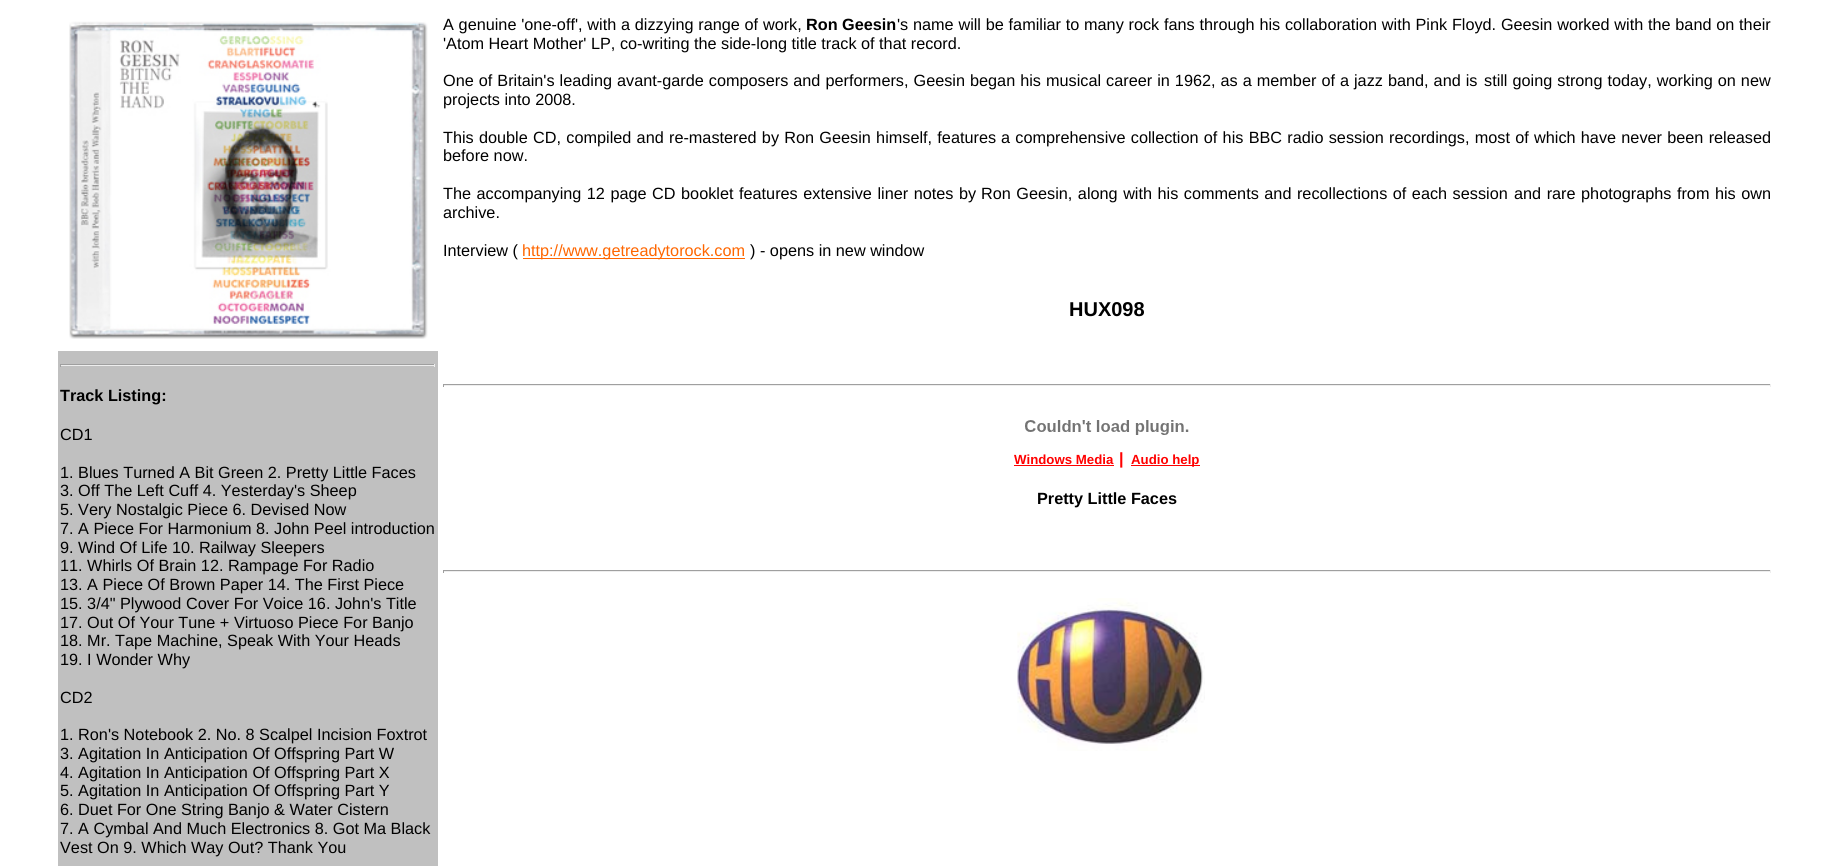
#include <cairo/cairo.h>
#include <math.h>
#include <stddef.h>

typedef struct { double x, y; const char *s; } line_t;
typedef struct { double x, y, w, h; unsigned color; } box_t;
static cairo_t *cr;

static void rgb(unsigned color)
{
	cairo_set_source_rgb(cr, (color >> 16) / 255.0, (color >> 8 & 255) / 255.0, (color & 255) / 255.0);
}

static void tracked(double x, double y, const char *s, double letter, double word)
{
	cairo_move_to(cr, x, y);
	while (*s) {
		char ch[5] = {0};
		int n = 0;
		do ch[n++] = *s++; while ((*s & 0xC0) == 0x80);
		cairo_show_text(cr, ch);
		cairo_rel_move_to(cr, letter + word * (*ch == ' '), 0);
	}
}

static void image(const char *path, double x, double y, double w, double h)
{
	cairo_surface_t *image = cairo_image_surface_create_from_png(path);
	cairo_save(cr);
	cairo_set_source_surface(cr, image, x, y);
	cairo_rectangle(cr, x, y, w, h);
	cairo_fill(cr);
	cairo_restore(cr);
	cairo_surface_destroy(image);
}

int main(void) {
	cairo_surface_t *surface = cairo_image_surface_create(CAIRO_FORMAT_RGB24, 1831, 866);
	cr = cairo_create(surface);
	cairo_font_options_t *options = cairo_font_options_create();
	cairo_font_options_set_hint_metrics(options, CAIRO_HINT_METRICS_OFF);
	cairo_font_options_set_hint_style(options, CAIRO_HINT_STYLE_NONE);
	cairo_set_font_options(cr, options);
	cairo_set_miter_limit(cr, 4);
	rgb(0xffffff);
	cairo_paint(cr);
	image("img/1.png", 69, 21, 359, 318);
	{
		static const box_t items[] = {
			{523, 258, 222, 1, 0xff6600},
			{443, 384, 1328, 1, 0x9f9f9f},
			{1770, 384, 1, 3, 0xeeeeee},
			{443, 385, 1328, 1, 0xeeeeee},
			{443, 384, 1, 3, 0x9f9f9f},
		};
		for (size_t i = 0; i < sizeof items / sizeof *items; i++) {
			rgb(items[i].color);
			cairo_rectangle(cr, items[i].x, items[i].y, items[i].w, items[i].h);
			cairo_fill(cr);
		}
	}
	image("img/2.png", 1025, 420, 164, 15);
	{
		static const box_t items[] = {
			{1014, 465, 100, 1, 0xff0000},
			{1131, 465, 69, 1, 0xff0000},
			{443, 570, 1328, 1, 0x9f9f9f},
			{1770, 570, 1, 3, 0xeeeeee},
			{443, 571, 1328, 1, 0xeeeeee},
			{443, 570, 1, 3, 0x9f9f9f},
		};
		for (size_t i = 0; i < sizeof items / sizeof *items; i++) {
			rgb(items[i].color);
			cairo_rectangle(cr, items[i].x, items[i].y, items[i].w, items[i].h);
			cairo_fill(cr);
		}
	}
	image("img/3.png", 1017, 598, 188, 153);
	{
		static const box_t items[] = {
			{58, 351, 380, 515, 0xc0c0c0},
			{60, 364, 375, 1, 0x9f9f9f},
			{434, 364, 1, 3, 0xeeeeee},
			{60, 365, 375, 1, 0xeeeeee},
			{60, 364, 1, 3, 0x9f9f9f},
		};
		for (size_t i = 0; i < sizeof items / sizeof *items; i++) {
			rgb(items[i].color);
			cairo_rectangle(cr, items[i].x, items[i].y, items[i].w, items[i].h);
			cairo_fill(cr);
		}
	}
	cairo_select_font_face(cr, "Liberation Sans", CAIRO_FONT_SLANT_NORMAL, CAIRO_FONT_WEIGHT_NORMAL);
	cairo_set_font_size(cr, 16.25);
	rgb(0x000000);
	tracked(443, 30, "A genuine 'one-off', with a dizzying range of work,", 0, 0.25);
	cairo_select_font_face(cr, "Liberation Sans", CAIRO_FONT_SLANT_NORMAL, CAIRO_FONT_WEIGHT_BOLD);
	cairo_move_to(cr, 806, 30);
	cairo_show_text(cr, "Ron Geesin");
	cairo_select_font_face(cr, "Liberation Sans", CAIRO_FONT_SLANT_NORMAL, CAIRO_FONT_WEIGHT_NORMAL);
	tracked(897, 30, "'s name will be familiar to many rock fans through his collaboration with Pink Floyd. Geesin worked with the band on their", 0, 0.25);
	cairo_move_to(cr, 443, 49);
	cairo_show_text(cr, "'Atom Heart Mother' LP, co-writing the side-long title track of that record.");
	{
		static const line_t items[] = {
			{443, 86, "One of Britain's leading avant-garde composers and performers, Geesin"},
			{970, 86, "began his musical career in 1962, as a member of a jazz band, and is"},
			{1484, 86, "still going strong today, working on new"},
		};
		for (size_t i = 0; i < sizeof items / sizeof *items; i++) {
			tracked(items[i].x, items[i].y, items[i].s, 0, 0.5);
		}
	}
	cairo_move_to(cr, 443, 105);
	cairo_show_text(cr, "projects into 2008.");
	{
		static const line_t items[] = {
			{443, 143, "This double CD, compiled and re-mastered by Ron Geesin himself, features"},
			{1001, 143, "a comprehensive collection of his BBC radio session recordings, most of"},
			{1534, 143, "which have never been released"},
		};
		for (size_t i = 0; i < sizeof items / sizeof *items; i++) {
			tracked(items[i].x, items[i].y, items[i].s, 0, 0.75);
		}
	}
	cairo_move_to(cr, 443, 161);
	cairo_show_text(cr, "before now.");
	{
		static const line_t items[] = {
			{443, 199, "The accompanying 12 page CD booklet features extensive liner notes by"},
			{981, 199, "Ron Geesin, along with his comments and recollections of each session"},
			{1514, 199, "and rare photographs from his own"},
		};
		for (size_t i = 0; i < sizeof items / sizeof *items; i++) {
			tracked(items[i].x, items[i].y, items[i].s, 0, 1);
		}
	}
	cairo_move_to(cr, 443, 218);
	cairo_show_text(cr, "archive.");
	cairo_move_to(cr, 443, 256);
	cairo_show_text(cr, "Interview (");
	rgb(0xff6600);
	cairo_move_to(cr, 522, 256);
	cairo_show_text(cr, "http://www.getreadytorock.com");
	rgb(0x000000);
	cairo_move_to(cr, 750, 256);
	cairo_show_text(cr, ") - opens in new window");
	cairo_select_font_face(cr, "Liberation Sans", CAIRO_FONT_SLANT_NORMAL, CAIRO_FONT_WEIGHT_BOLD);
	cairo_set_font_size(cr, 20);
	cairo_move_to(cr, 1069, 316);
	cairo_show_text(cr, "HUX098");
	cairo_set_font_size(cr, 13.25);
	rgb(0xff0000);
	cairo_move_to(cr, 1014, 464);
	cairo_show_text(cr, "Windows Media");
	cairo_set_font_size(cr, 16.25);
	cairo_move_to(cr, 1119, 464);
	cairo_show_text(cr, "|");
	cairo_set_font_size(cr, 13.25);
	cairo_move_to(cr, 1131, 464);
	cairo_show_text(cr, "Audio help");
	cairo_set_font_size(cr, 16.25);
	rgb(0x000000);
	cairo_move_to(cr, 1037, 504);
	cairo_show_text(cr, "Pretty Little Faces");
	cairo_move_to(cr, 60, 401);
	cairo_show_text(cr, "Track Listing:");
	cairo_select_font_face(cr, "Liberation Sans", CAIRO_FONT_SLANT_NORMAL, CAIRO_FONT_WEIGHT_NORMAL);
	{
		static const line_t items[] = {
			{60, 440, "CD1"},
			{60, 478, "1. Blues Turned A Bit Green 2. Pretty Little Faces"},
			{60, 496, "3. Off The Left Cuff 4. Yesterday's Sheep"},
			{60, 515, "5. Very Nostalgic Piece 6. Devised Now"},
			{60, 534, "7. A Piece For Harmonium 8. John Peel introduction"},
			{60, 553, "9. Wind Of Life 10. Railway Sleepers"},
			{60, 571, "11. Whirls Of Brain 12. Rampage For Radio"},
			{60, 590, "13. A Piece Of Brown Paper 14. The First Piece"},
			{60, 609, "15. 3/4\" Plywood Cover For Voice 16. John's Title"},
			{60, 628, "17. Out Of Your Tune + Virtuoso Piece For Banjo"},
			{60, 646, "18. Mr. Tape Machine, Speak With Your Heads"},
			{60, 665, "19. I Wonder Why"},
			{60, 703, "CD2"},
			{60, 740, "1. Ron's Notebook 2. No. 8 Scalpel Incision Foxtrot"},
			{60, 759, "3. Agitation In Anticipation Of Offspring Part W"},
			{60, 778, "4. Agitation In Anticipation Of Offspring Part X"},
			{60, 796, "5. Agitation In Anticipation Of Offspring Part Y"},
			{60, 815, "6. Duet For One String Banjo & Water Cistern"},
			{60, 834, "7. A Cymbal And Much Electronics 8. Got Ma Black"},
			{60, 853, "Vest On 9. Which Way Out? Thank You"},
		};
		for (size_t i = 0; i < sizeof items / sizeof *items; i++) {
			cairo_move_to(cr, items[i].x, items[i].y);
			cairo_show_text(cr, items[i].s);
		}
	}
	cairo_surface_write_to_png(surface, "page.png");
	cairo_font_options_destroy(options);
	cairo_destroy(cr);
	cairo_surface_destroy(surface);
	return 0;
}
